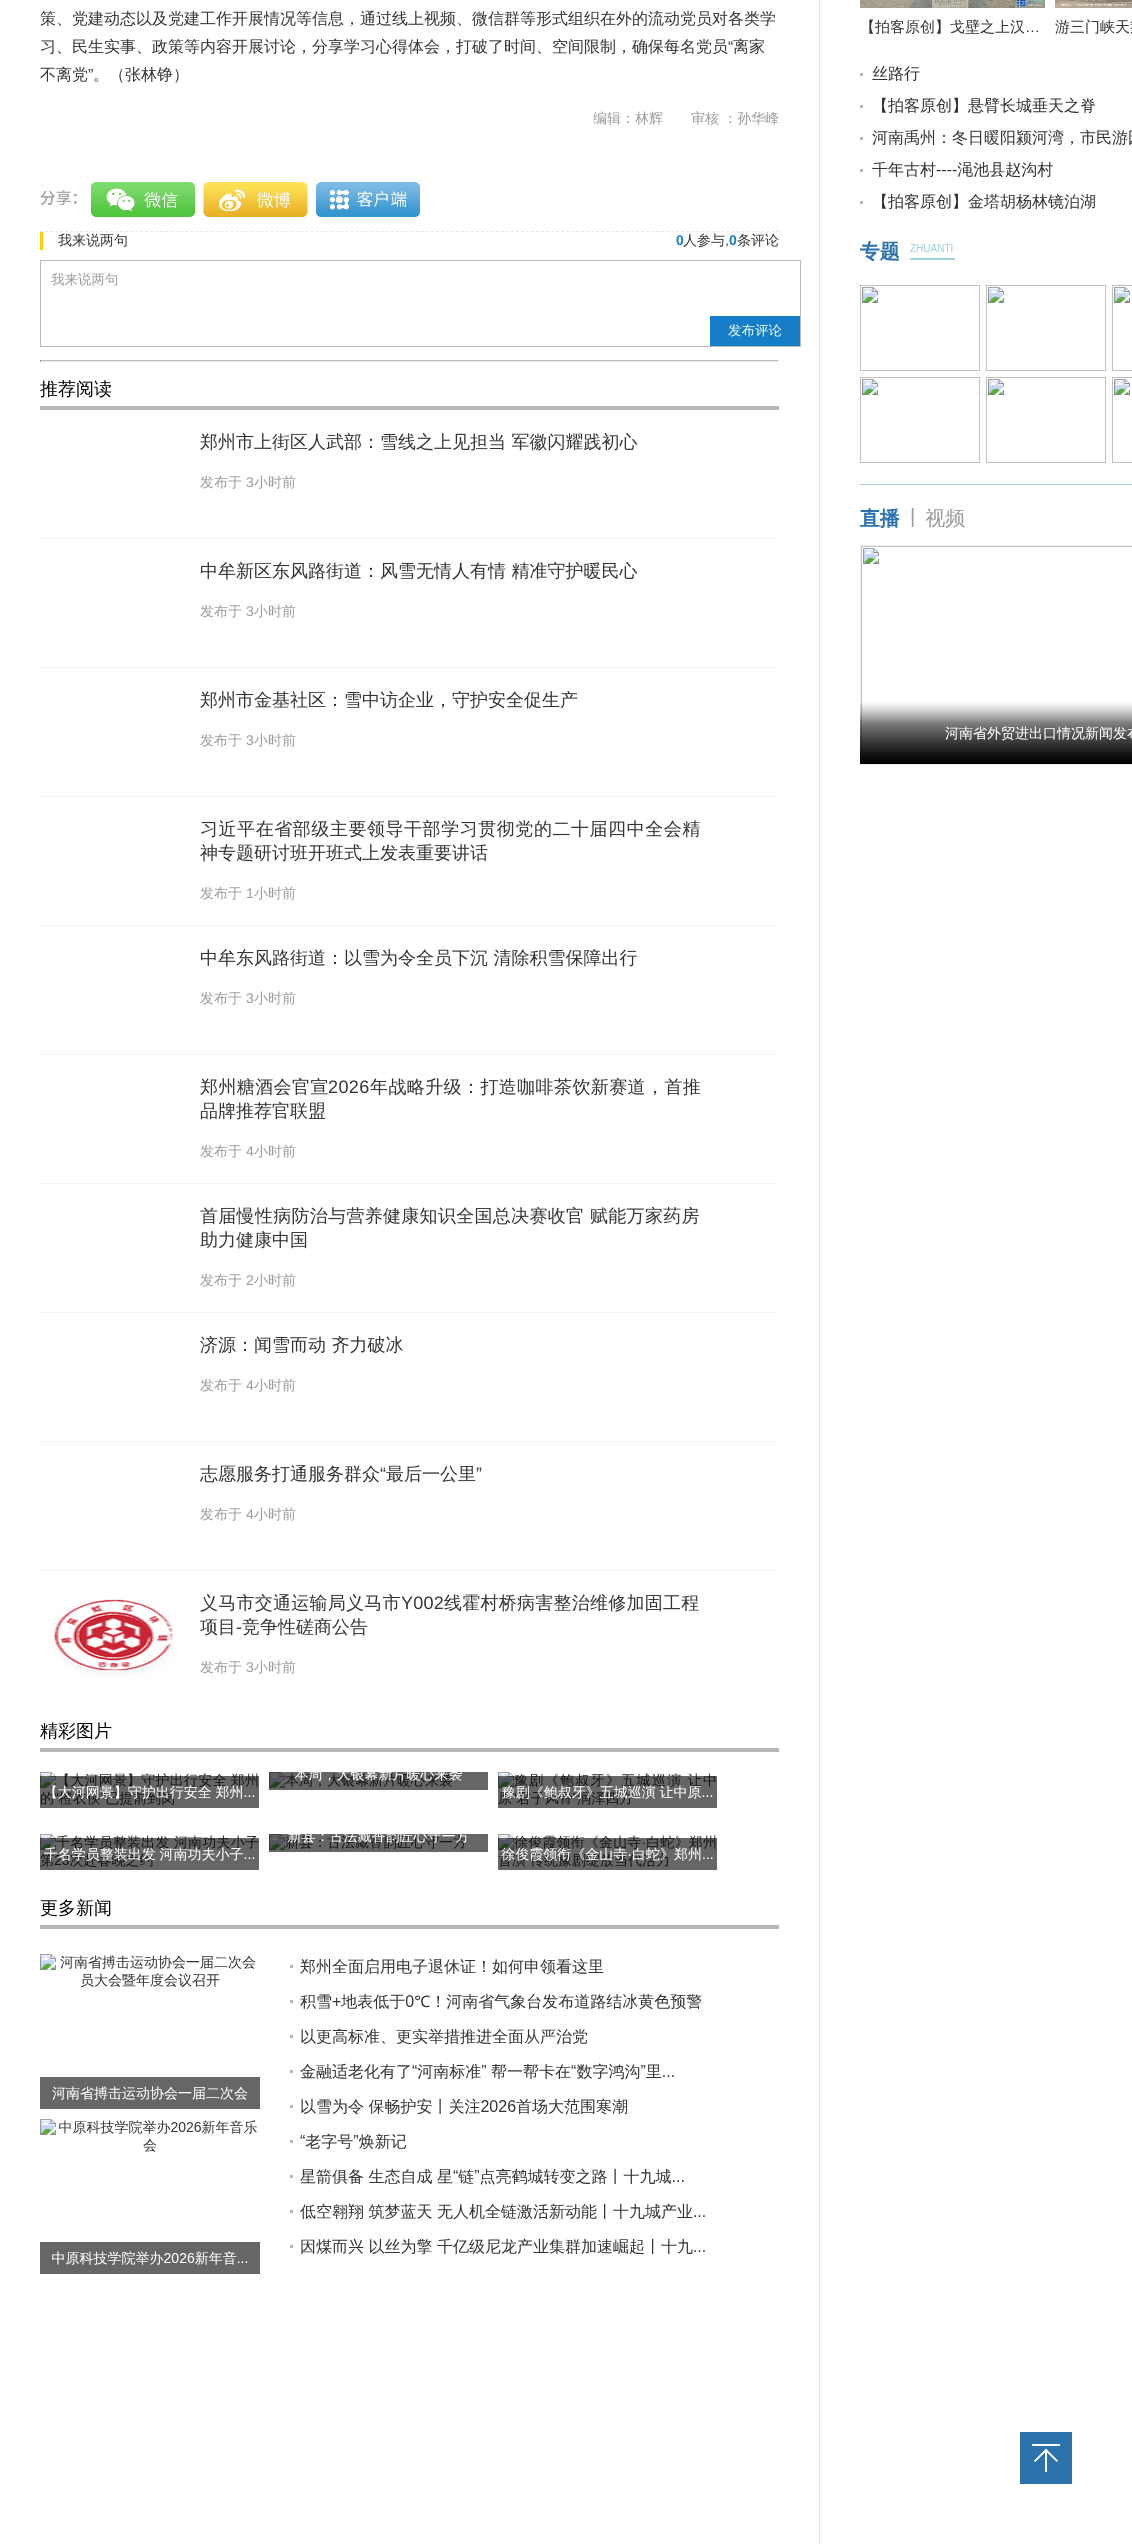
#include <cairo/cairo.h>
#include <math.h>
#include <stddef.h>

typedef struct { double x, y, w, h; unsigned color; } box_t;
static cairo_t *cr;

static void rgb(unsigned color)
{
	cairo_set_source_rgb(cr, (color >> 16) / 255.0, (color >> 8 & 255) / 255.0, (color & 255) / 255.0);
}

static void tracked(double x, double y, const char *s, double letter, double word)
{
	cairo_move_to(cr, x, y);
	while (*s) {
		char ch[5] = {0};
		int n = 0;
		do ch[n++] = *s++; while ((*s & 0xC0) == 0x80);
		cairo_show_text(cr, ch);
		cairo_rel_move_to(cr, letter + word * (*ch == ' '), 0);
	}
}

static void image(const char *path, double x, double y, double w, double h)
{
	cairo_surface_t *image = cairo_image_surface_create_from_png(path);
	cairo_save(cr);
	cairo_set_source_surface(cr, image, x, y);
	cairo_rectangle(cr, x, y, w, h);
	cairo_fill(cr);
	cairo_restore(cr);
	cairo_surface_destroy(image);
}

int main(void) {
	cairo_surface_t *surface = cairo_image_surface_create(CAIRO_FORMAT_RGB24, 1132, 2544);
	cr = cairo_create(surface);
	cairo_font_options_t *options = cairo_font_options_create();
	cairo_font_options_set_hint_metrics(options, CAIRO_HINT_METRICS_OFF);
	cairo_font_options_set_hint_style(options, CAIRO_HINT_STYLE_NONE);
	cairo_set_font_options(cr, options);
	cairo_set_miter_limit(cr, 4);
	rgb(0xffffff);
	cairo_paint(cr);
	rgb(0xe4e4e4);
	cairo_rectangle(cr, 819, 0, 1, 2544);
	cairo_fill(cr);
	image("img/1.png", 40, 182, 380, 35);
	cairo_new_path(cr);
	cairo_move_to(cr, 40, 231.5);
	cairo_line_to(cr, 779, 231.5);
	rgb(0xe7e7e7);
	cairo_set_line_width(cr, 1);
	cairo_set_dash(cr, (double[]){3, 2.01}, 2, 0);
	cairo_stroke(cr);
	rgb(0xfed000);
	cairo_rectangle(cr, 40, 232, 3, 18);
	cairo_fill(cr);
	cairo_rectangle(cr, 40.5, 260.5, 760, 86);
	rgb(0xbbbbbb);
	cairo_set_dash(cr, NULL, 0, 0);
	cairo_stroke(cr);
	{
		static const box_t items[] = {
			{710, 316, 90, 30, 0x147ec8},
			{40, 360, 739, 1, 0xbbbbbb},
			{778, 360, 1, 2, 0xeeeeee},
			{40, 361, 739, 1, 0xeeeeee},
			{40, 360, 1, 2, 0x9f9f9f},
			{40, 406, 739, 4, 0xb6b6b6},
			{40, 538, 739, 1, 0xf5f5f5},
			{40, 667, 739, 1, 0xf5f5f5},
			{40, 796, 739, 1, 0xf5f5f5},
			{40, 925, 739, 1, 0xf5f5f5},
			{40, 1054, 739, 1, 0xf5f5f5},
			{40, 1183, 739, 1, 0xf5f5f5},
			{40, 1312, 739, 1, 0xf5f5f5},
			{40, 1441, 739, 1, 0xf5f5f5},
			{40, 1570, 739, 1, 0xf5f5f5},
		};
		for (size_t i = 0; i < sizeof items / sizeof *items; i++) {
			rgb(items[i].color);
			cairo_rectangle(cr, items[i].x, items[i].y, items[i].w, items[i].h);
			cairo_fill(cr);
		}
	}
	image("img/2.png", 52, 1599, 122, 77);
	image("img/3.png", 40, 1722, 739, 552);
	image("img/4.png", 860, 0, 272, 765);
	image("img/5.png", 1020, 2432, 52, 52);
	cairo_select_font_face(cr, "WenQuanYi Zen Hei Medium", CAIRO_FONT_SLANT_NORMAL, CAIRO_FONT_WEIGHT_NORMAL);
	cairo_set_font_size(cr, 16);
	rgb(0x333333);
	cairo_move_to(cr, 40, 24);
	cairo_show_text(cr, "策、党建动态以及党建工作开展情况等信息，通过线上视频、微信群等形式组织在外的流动党员对各类学");
	cairo_move_to(cr, 40, 52);
	cairo_show_text(cr, "习、民生实事、政策等内容开展讨论，分享学习心得体会，打破了时间、空间限制，确保每名党员");
	cairo_select_font_face(cr, "Liberation Sans", CAIRO_FONT_SLANT_NORMAL, CAIRO_FONT_WEIGHT_NORMAL);
	cairo_move_to(cr, 728, 52);
	cairo_show_text(cr, "“");
	cairo_select_font_face(cr, "WenQuanYi Zen Hei Medium", CAIRO_FONT_SLANT_NORMAL, CAIRO_FONT_WEIGHT_NORMAL);
	cairo_move_to(cr, 733, 52);
	cairo_show_text(cr, "离家");
	cairo_move_to(cr, 40, 80);
	cairo_show_text(cr, "不离党");
	cairo_select_font_face(cr, "Liberation Sans", CAIRO_FONT_SLANT_NORMAL, CAIRO_FONT_WEIGHT_NORMAL);
	cairo_move_to(cr, 88, 80);
	cairo_show_text(cr, "”");
	cairo_select_font_face(cr, "WenQuanYi Zen Hei Medium", CAIRO_FONT_SLANT_NORMAL, CAIRO_FONT_WEIGHT_NORMAL);
	cairo_move_to(cr, 93, 80);
	cairo_show_text(cr, "。（张林铮）");
	cairo_set_font_size(cr, 14);
	rgb(0x999999);
	cairo_move_to(cr, 593, 123);
	cairo_show_text(cr, "编辑：林辉　　审核 ：孙华峰");
	rgb(0x333333);
	cairo_move_to(cr, 58, 245);
	cairo_show_text(cr, "我来说两句");
	cairo_select_font_face(cr, "Liberation Sans", CAIRO_FONT_SLANT_NORMAL, CAIRO_FONT_WEIGHT_BOLD);
	rgb(0x137fca);
	cairo_move_to(cr, 676, 245);
	cairo_show_text(cr, "0");
	cairo_select_font_face(cr, "WenQuanYi Zen Hei Medium", CAIRO_FONT_SLANT_NORMAL, CAIRO_FONT_WEIGHT_NORMAL);
	rgb(0x333333);
	cairo_move_to(cr, 683, 245);
	cairo_show_text(cr, "人参与");
	cairo_select_font_face(cr, "Liberation Sans", CAIRO_FONT_SLANT_NORMAL, CAIRO_FONT_WEIGHT_NORMAL);
	cairo_move_to(cr, 725, 245);
	cairo_show_text(cr, ",");
	cairo_select_font_face(cr, "Liberation Sans", CAIRO_FONT_SLANT_NORMAL, CAIRO_FONT_WEIGHT_BOLD);
	rgb(0x137fca);
	cairo_move_to(cr, 729, 245);
	cairo_show_text(cr, "0");
	cairo_select_font_face(cr, "WenQuanYi Zen Hei Medium", CAIRO_FONT_SLANT_NORMAL, CAIRO_FONT_WEIGHT_NORMAL);
	rgb(0x333333);
	cairo_move_to(cr, 737, 245);
	cairo_show_text(cr, "条评论");
	cairo_set_font_size(cr, 13.5);
	rgb(0x999999);
	cairo_move_to(cr, 51, 284);
	cairo_show_text(cr, "我来说两句");
	rgb(0xffffff);
	cairo_move_to(cr, 728, 335);
	cairo_show_text(cr, "发布评论");
	cairo_set_font_size(cr, 18);
	rgb(0x000000);
	cairo_move_to(cr, 40, 395);
	cairo_show_text(cr, "推荐阅读");
	rgb(0x333333);
	cairo_move_to(cr, 200, 448);
	cairo_show_text(cr, "郑州市上街区人武部：雪线之上见担当 军徽闪耀践初心");
	cairo_set_font_size(cr, 14);
	rgb(0x999999);
	cairo_move_to(cr, 200, 487);
	cairo_show_text(cr, "发布于");
	cairo_select_font_face(cr, "Liberation Sans", CAIRO_FONT_SLANT_NORMAL, CAIRO_FONT_WEIGHT_NORMAL);
	cairo_move_to(cr, 246, 487);
	cairo_show_text(cr, "3");
	cairo_select_font_face(cr, "WenQuanYi Zen Hei Medium", CAIRO_FONT_SLANT_NORMAL, CAIRO_FONT_WEIGHT_NORMAL);
	cairo_move_to(cr, 254, 487);
	cairo_show_text(cr, "小时前");
	cairo_set_font_size(cr, 18);
	rgb(0x333333);
	cairo_move_to(cr, 200, 577);
	cairo_show_text(cr, "中牟新区东风路街道：风雪无情人有情 精准守护暖民心");
	cairo_set_font_size(cr, 14);
	rgb(0x999999);
	cairo_move_to(cr, 200, 616);
	cairo_show_text(cr, "发布于");
	cairo_select_font_face(cr, "Liberation Sans", CAIRO_FONT_SLANT_NORMAL, CAIRO_FONT_WEIGHT_NORMAL);
	cairo_move_to(cr, 246, 616);
	cairo_show_text(cr, "3");
	cairo_select_font_face(cr, "WenQuanYi Zen Hei Medium", CAIRO_FONT_SLANT_NORMAL, CAIRO_FONT_WEIGHT_NORMAL);
	cairo_move_to(cr, 254, 616);
	cairo_show_text(cr, "小时前");
	cairo_set_font_size(cr, 18);
	rgb(0x333333);
	cairo_move_to(cr, 200, 706);
	cairo_show_text(cr, "郑州市金基社区：雪中访企业，守护安全促生产");
	cairo_set_font_size(cr, 14);
	rgb(0x999999);
	cairo_move_to(cr, 200, 745);
	cairo_show_text(cr, "发布于");
	cairo_select_font_face(cr, "Liberation Sans", CAIRO_FONT_SLANT_NORMAL, CAIRO_FONT_WEIGHT_NORMAL);
	cairo_move_to(cr, 246, 745);
	cairo_show_text(cr, "3");
	cairo_select_font_face(cr, "WenQuanYi Zen Hei Medium", CAIRO_FONT_SLANT_NORMAL, CAIRO_FONT_WEIGHT_NORMAL);
	cairo_move_to(cr, 254, 745);
	cairo_show_text(cr, "小时前");
	cairo_set_font_size(cr, 18);
	rgb(0x333333);
	tracked(200, 835, "习近平在省部级主要领导干部学习贯彻党的二十届四中全会精", 0.55, 0);
	cairo_move_to(cr, 200, 859);
	cairo_show_text(cr, "神专题研讨班开班式上发表重要讲话");
	cairo_set_font_size(cr, 14);
	rgb(0x999999);
	cairo_move_to(cr, 200, 898);
	cairo_show_text(cr, "发布于");
	cairo_select_font_face(cr, "Liberation Sans", CAIRO_FONT_SLANT_NORMAL, CAIRO_FONT_WEIGHT_NORMAL);
	cairo_move_to(cr, 246, 898);
	cairo_show_text(cr, "1");
	cairo_select_font_face(cr, "WenQuanYi Zen Hei Medium", CAIRO_FONT_SLANT_NORMAL, CAIRO_FONT_WEIGHT_NORMAL);
	cairo_move_to(cr, 254, 898);
	cairo_show_text(cr, "小时前");
	cairo_set_font_size(cr, 18);
	rgb(0x333333);
	cairo_move_to(cr, 200, 964);
	cairo_show_text(cr, "中牟东风路街道：以雪为令全员下沉 清除积雪保障出行");
	cairo_set_font_size(cr, 14);
	rgb(0x999999);
	cairo_move_to(cr, 200, 1003);
	cairo_show_text(cr, "发布于");
	cairo_select_font_face(cr, "Liberation Sans", CAIRO_FONT_SLANT_NORMAL, CAIRO_FONT_WEIGHT_NORMAL);
	cairo_move_to(cr, 246, 1003);
	cairo_show_text(cr, "3");
	cairo_select_font_face(cr, "WenQuanYi Zen Hei Medium", CAIRO_FONT_SLANT_NORMAL, CAIRO_FONT_WEIGHT_NORMAL);
	cairo_move_to(cr, 254, 1003);
	cairo_show_text(cr, "小时前");
	cairo_set_font_size(cr, 18);
	rgb(0x333333);
	tracked(200, 1093, "郑州糖酒会官宣", 0.4, 0);
	cairo_select_font_face(cr, "Liberation Sans", CAIRO_FONT_SLANT_NORMAL, CAIRO_FONT_WEIGHT_NORMAL);
	tracked(328, 1093, "2026", 0.4, 0);
	cairo_select_font_face(cr, "WenQuanYi Zen Hei Medium", CAIRO_FONT_SLANT_NORMAL, CAIRO_FONT_WEIGHT_NORMAL);
	tracked(370, 1093, "年战略升级：打造咖啡茶饮新赛道，首推", 0.4, 0);
	cairo_move_to(cr, 200, 1117);
	cairo_show_text(cr, "品牌推荐官联盟");
	cairo_set_font_size(cr, 14);
	rgb(0x999999);
	cairo_move_to(cr, 200, 1156);
	cairo_show_text(cr, "发布于");
	cairo_select_font_face(cr, "Liberation Sans", CAIRO_FONT_SLANT_NORMAL, CAIRO_FONT_WEIGHT_NORMAL);
	cairo_move_to(cr, 246, 1156);
	cairo_show_text(cr, "4");
	cairo_select_font_face(cr, "WenQuanYi Zen Hei Medium", CAIRO_FONT_SLANT_NORMAL, CAIRO_FONT_WEIGHT_NORMAL);
	cairo_move_to(cr, 254, 1156);
	cairo_show_text(cr, "小时前");
	cairo_set_font_size(cr, 18);
	rgb(0x333333);
	tracked(200, 1222, "首届慢性病防治与营养健康知识全国总决赛收官 赋能万家药房", 0.3, 0);
	cairo_move_to(cr, 200, 1246);
	cairo_show_text(cr, "助力健康中国");
	cairo_set_font_size(cr, 14);
	rgb(0x999999);
	cairo_move_to(cr, 200, 1285);
	cairo_show_text(cr, "发布于");
	cairo_select_font_face(cr, "Liberation Sans", CAIRO_FONT_SLANT_NORMAL, CAIRO_FONT_WEIGHT_NORMAL);
	cairo_move_to(cr, 246, 1285);
	cairo_show_text(cr, "2");
	cairo_select_font_face(cr, "WenQuanYi Zen Hei Medium", CAIRO_FONT_SLANT_NORMAL, CAIRO_FONT_WEIGHT_NORMAL);
	cairo_move_to(cr, 254, 1285);
	cairo_show_text(cr, "小时前");
	cairo_set_font_size(cr, 18);
	rgb(0x333333);
	cairo_move_to(cr, 200, 1351);
	cairo_show_text(cr, "济源：闻雪而动 齐力破冰");
	cairo_set_font_size(cr, 14);
	rgb(0x999999);
	cairo_move_to(cr, 200, 1390);
	cairo_show_text(cr, "发布于");
	cairo_select_font_face(cr, "Liberation Sans", CAIRO_FONT_SLANT_NORMAL, CAIRO_FONT_WEIGHT_NORMAL);
	cairo_move_to(cr, 246, 1390);
	cairo_show_text(cr, "4");
	cairo_select_font_face(cr, "WenQuanYi Zen Hei Medium", CAIRO_FONT_SLANT_NORMAL, CAIRO_FONT_WEIGHT_NORMAL);
	cairo_move_to(cr, 254, 1390);
	cairo_show_text(cr, "小时前");
	cairo_set_font_size(cr, 18);
	rgb(0x333333);
	cairo_move_to(cr, 200, 1480);
	cairo_show_text(cr, "志愿服务打通服务群众");
	cairo_select_font_face(cr, "Liberation Sans", CAIRO_FONT_SLANT_NORMAL, CAIRO_FONT_WEIGHT_NORMAL);
	cairo_move_to(cr, 380, 1480);
	cairo_show_text(cr, "“");
	cairo_select_font_face(cr, "WenQuanYi Zen Hei Medium", CAIRO_FONT_SLANT_NORMAL, CAIRO_FONT_WEIGHT_NORMAL);
	cairo_move_to(cr, 386, 1480);
	cairo_show_text(cr, "最后一公里");
	cairo_select_font_face(cr, "Liberation Sans", CAIRO_FONT_SLANT_NORMAL, CAIRO_FONT_WEIGHT_NORMAL);
	cairo_move_to(cr, 476, 1480);
	cairo_show_text(cr, "”");
	cairo_select_font_face(cr, "WenQuanYi Zen Hei Medium", CAIRO_FONT_SLANT_NORMAL, CAIRO_FONT_WEIGHT_NORMAL);
	cairo_set_font_size(cr, 14);
	rgb(0x999999);
	cairo_move_to(cr, 200, 1519);
	cairo_show_text(cr, "发布于");
	cairo_select_font_face(cr, "Liberation Sans", CAIRO_FONT_SLANT_NORMAL, CAIRO_FONT_WEIGHT_NORMAL);
	cairo_move_to(cr, 246, 1519);
	cairo_show_text(cr, "4");
	cairo_select_font_face(cr, "WenQuanYi Zen Hei Medium", CAIRO_FONT_SLANT_NORMAL, CAIRO_FONT_WEIGHT_NORMAL);
	cairo_move_to(cr, 254, 1519);
	cairo_show_text(cr, "小时前");
	cairo_set_font_size(cr, 18);
	rgb(0x333333);
	tracked(200, 1609, "义马市交通运输局义马市", 0.25, 0);
	cairo_select_font_face(cr, "Liberation Sans", CAIRO_FONT_SLANT_NORMAL, CAIRO_FONT_WEIGHT_NORMAL);
	tracked(401, 1609, "Y002", 0.25, 0);
	cairo_select_font_face(cr, "WenQuanYi Zen Hei Medium", CAIRO_FONT_SLANT_NORMAL, CAIRO_FONT_WEIGHT_NORMAL);
	tracked(444, 1609, "线霍村桥病害整治维修加固工程", 0.25, 0);
	cairo_move_to(cr, 200, 1633);
	cairo_show_text(cr, "项目");
	cairo_select_font_face(cr, "Liberation Sans", CAIRO_FONT_SLANT_NORMAL, CAIRO_FONT_WEIGHT_NORMAL);
	cairo_move_to(cr, 236, 1633);
	cairo_show_text(cr, "-");
	cairo_select_font_face(cr, "WenQuanYi Zen Hei Medium", CAIRO_FONT_SLANT_NORMAL, CAIRO_FONT_WEIGHT_NORMAL);
	cairo_move_to(cr, 242, 1633);
	cairo_show_text(cr, "竞争性磋商公告");
	cairo_set_font_size(cr, 14);
	rgb(0x999999);
	cairo_move_to(cr, 200, 1672);
	cairo_show_text(cr, "发布于");
	cairo_select_font_face(cr, "Liberation Sans", CAIRO_FONT_SLANT_NORMAL, CAIRO_FONT_WEIGHT_NORMAL);
	cairo_move_to(cr, 246, 1672);
	cairo_show_text(cr, "3");
	cairo_select_font_face(cr, "WenQuanYi Zen Hei Medium", CAIRO_FONT_SLANT_NORMAL, CAIRO_FONT_WEIGHT_NORMAL);
	cairo_move_to(cr, 254, 1672);
	cairo_show_text(cr, "小时前");
	cairo_surface_write_to_png(surface, "page.png");
	cairo_font_options_destroy(options);
	cairo_destroy(cr);
	cairo_surface_destroy(surface);
	return 0;
}
